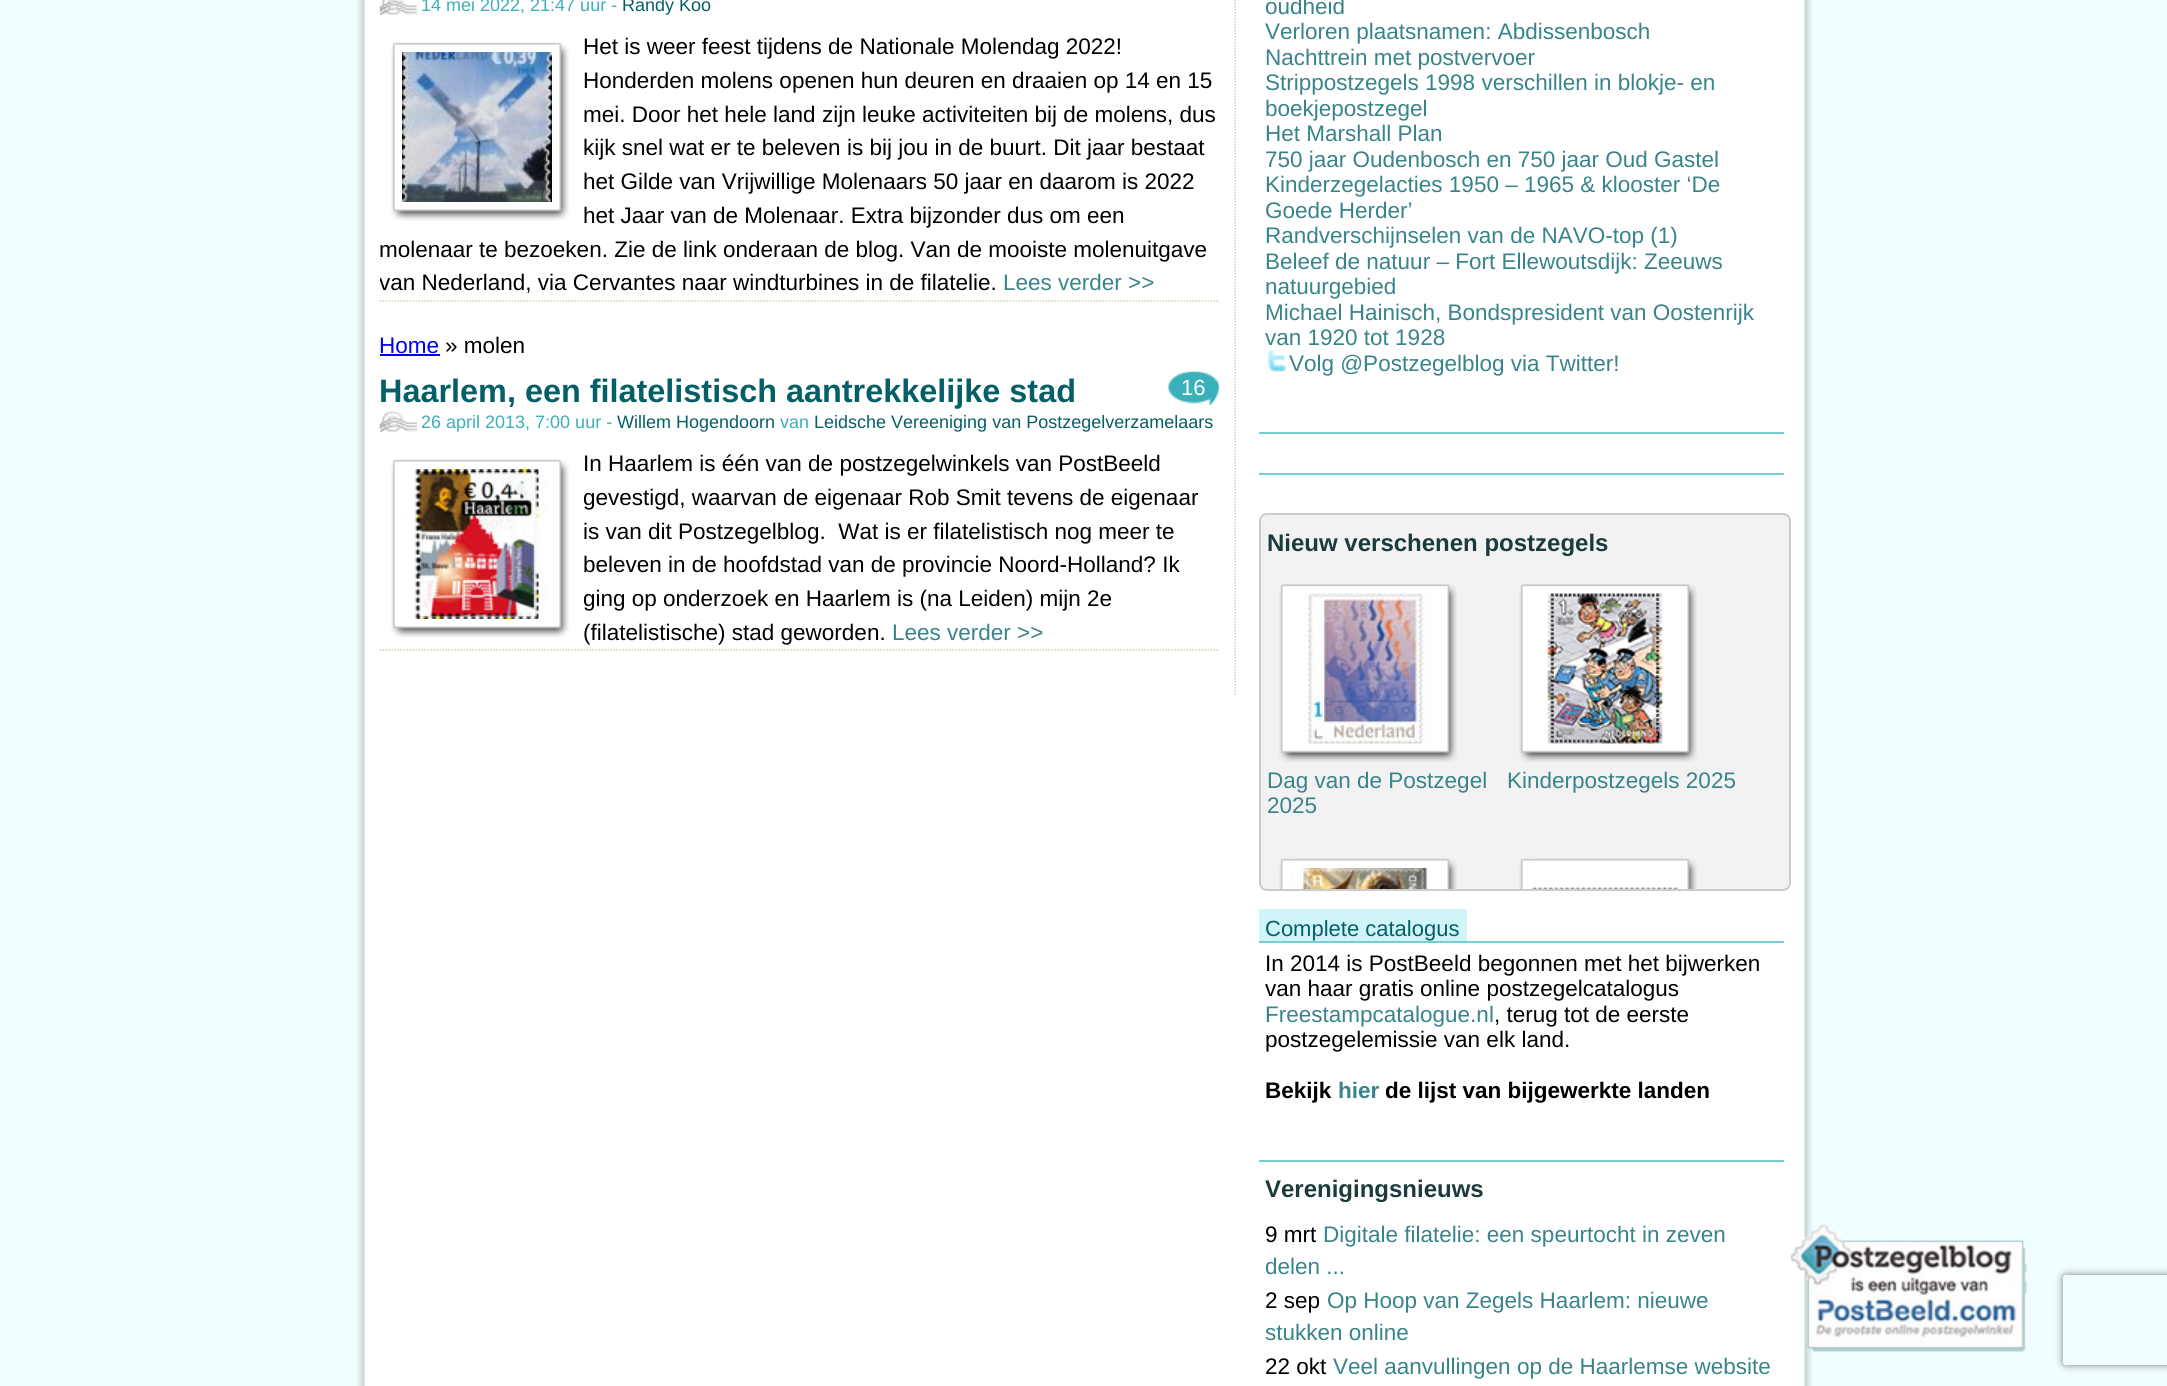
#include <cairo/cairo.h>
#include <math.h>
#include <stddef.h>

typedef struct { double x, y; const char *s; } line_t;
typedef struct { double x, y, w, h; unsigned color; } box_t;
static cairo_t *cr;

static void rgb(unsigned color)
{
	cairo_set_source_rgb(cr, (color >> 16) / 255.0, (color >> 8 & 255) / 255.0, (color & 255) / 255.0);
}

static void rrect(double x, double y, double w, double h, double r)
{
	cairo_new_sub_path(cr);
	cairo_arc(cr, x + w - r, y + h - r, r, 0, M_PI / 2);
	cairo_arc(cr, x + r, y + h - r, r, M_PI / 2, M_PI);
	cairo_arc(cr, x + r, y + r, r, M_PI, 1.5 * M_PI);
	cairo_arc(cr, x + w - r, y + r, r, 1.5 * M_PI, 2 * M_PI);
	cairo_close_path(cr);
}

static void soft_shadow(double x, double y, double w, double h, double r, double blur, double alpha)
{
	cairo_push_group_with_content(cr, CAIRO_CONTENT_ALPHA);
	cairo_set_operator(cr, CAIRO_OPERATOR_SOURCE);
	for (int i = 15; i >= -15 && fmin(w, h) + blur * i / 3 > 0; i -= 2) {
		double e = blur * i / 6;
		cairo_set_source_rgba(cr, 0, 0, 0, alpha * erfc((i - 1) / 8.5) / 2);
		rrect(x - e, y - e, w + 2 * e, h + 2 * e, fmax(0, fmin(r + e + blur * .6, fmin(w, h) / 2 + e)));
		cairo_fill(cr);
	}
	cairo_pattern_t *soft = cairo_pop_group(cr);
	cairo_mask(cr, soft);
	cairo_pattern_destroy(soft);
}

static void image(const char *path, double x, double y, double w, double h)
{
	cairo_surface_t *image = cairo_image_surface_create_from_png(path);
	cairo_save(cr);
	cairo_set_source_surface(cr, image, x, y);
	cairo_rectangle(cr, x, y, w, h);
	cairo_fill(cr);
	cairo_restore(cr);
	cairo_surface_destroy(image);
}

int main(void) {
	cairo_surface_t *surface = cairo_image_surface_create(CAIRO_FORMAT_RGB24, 2167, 1386);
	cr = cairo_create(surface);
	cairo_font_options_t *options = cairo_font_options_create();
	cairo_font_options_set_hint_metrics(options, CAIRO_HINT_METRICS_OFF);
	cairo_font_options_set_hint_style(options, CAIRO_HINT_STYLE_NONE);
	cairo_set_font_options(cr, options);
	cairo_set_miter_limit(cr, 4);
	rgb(0xf0feff);
	cairo_paint(cr);
	image("img/1.png", 357, 0, 1455, 1386);
	cairo_new_path(cr);
	cairo_move_to(cr, 1235, -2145);
	cairo_line_to(cr, 1235, 696);
	rgb(0xd9ccaf);
	cairo_set_line_width(cr, 1.5);
	cairo_set_dash(cr, (double[]){1.5, 1.5}, 2, 0);
	cairo_stroke(cr);
	cairo_new_path(cr);
	cairo_move_to(cr, 379.5, 301);
	cairo_line_to(cr, 1219.5, 301);
	cairo_stroke(cr);
	image("img/2.png", 379, 0, 38, 15);
	image("img/3.png", 391, 42, 178, 179);
	rgb(0x0000ee);
	cairo_rectangle(cr, 380, 354, 60, 2);
	cairo_fill(cr);
	cairo_new_path(cr);
	cairo_move_to(cr, 379.5, 650);
	cairo_line_to(cr, 1219.5, 650);
	rgb(0xd9ccaf);
	cairo_stroke(cr);
	image("img/4.png", 1168, 371, 52, 35);
	image("img/5.png", 379, 410, 38, 22);
	image("img/6.png", 391, 459, 178, 179);
	image("img/7.png", 1267, 349, 20, 23);
	rgb(0x76cdd4);
	cairo_rectangle(cr, 1259, 432, 525, 2);
	cairo_fill(cr);
	cairo_rectangle(cr, 1259, 473, 525, 2);
	cairo_fill(cr);
	rgb(0xf2f2f2);
	rrect(1260, 514, 530, 376, 7);
	cairo_fill_preserve(cr);
	rgb(0xcccccc);
	cairo_set_line_width(cr, 2);
	cairo_set_dash(cr, NULL, 0, 0);
	cairo_stroke(cr);
	image("img/8.png", 1279, 584, 178, 178);
	image("img/9.png", 1302, 593, 131, 151);
	image("img/10.png", 1519, 584, 178, 178);
	image("img/11.png", 1547, 593, 118, 151);
	image("img/12.png", 1279, 858, 178, 31);
	image("img/13.png", 1290, 868, 141, 21);
	image("img/14.png", 1519, 858, 178, 31);
	image("img/15.png", 1531, 887, 148, 2);
	{
		static const box_t items[] = {
			{1259, 909, 208, 32, 0xd0f5f8},
			{1259, 941, 525, 2, 0x76cdd4},
			{1259, 1160, 525, 2, 0x76cdd4},
		};
		for (size_t i = 0; i < sizeof items / sizeof *items; i++) {
			rgb(items[i].color);
			cairo_rectangle(cr, items[i].x, items[i].y, items[i].w, items[i].h);
			cairo_fill(cr);
		}
	}
	image("img/16.png", 1790, 1224, 237, 128);
	cairo_save(cr);
	cairo_set_fill_rule(cr, CAIRO_FILL_RULE_EVEN_ODD);
	cairo_new_path(cr);
	cairo_move_to(cr, 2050, 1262);
	cairo_line_to(cr, 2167, 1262);
	cairo_line_to(cr, 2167, 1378);
	cairo_line_to(cr, 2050, 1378);
	cairo_close_path(cr);
	cairo_move_to(cr, 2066, 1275);
	cairo_line_to(cr, 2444, 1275);
	cairo_curve_to(cr, 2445.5, 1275, 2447, 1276.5, 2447, 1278);
	cairo_line_to(cr, 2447, 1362);
	cairo_curve_to(cr, 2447, 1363.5, 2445.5, 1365, 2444, 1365);
	cairo_line_to(cr, 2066, 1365);
	cairo_curve_to(cr, 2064.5, 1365, 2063, 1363.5, 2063, 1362);
	cairo_line_to(cr, 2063, 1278);
	cairo_curve_to(cr, 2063, 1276.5, 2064.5, 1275, 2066, 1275);
	cairo_close_path(cr);
	cairo_clip(cr);
	rgb(0x808080);
	soft_shadow(2063, 1275, 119, 90, 3, 4, 1);
	cairo_restore(cr);
	cairo_select_font_face(cr, "Liberation Sans", CAIRO_FONT_SLANT_NORMAL, CAIRO_FONT_WEIGHT_NORMAL);
	cairo_set_font_size(cr, 18);
	rgb(0x3ab0ba);
	cairo_move_to(cr, 421, 11);
	cairo_show_text(cr, "14 mei 2022, 21:47 uur -");
	rgb(0x045f66);
	cairo_move_to(cr, 622, 11);
	cairo_show_text(cr, "Randy Koo");
	cairo_set_font_size(cr, 22.5);
	rgb(0x000000);
	{
		static const line_t items[] = {
			{583, 54, "Het is weer feest tijdens de Nationale Molendag 2022!"},
			{583, 88, "Honderden molens openen hun deuren en draaien op 14 en 15"},
			{583, 122, "mei. Door het hele land zijn leuke activiteiten bij de molens, dus"},
			{583, 155, "kijk snel wat er te beleven is bij jou in de buurt. Dit jaar bestaat"},
			{583, 189, "het Gilde van Vrijwillige Molenaars 50 jaar en daarom is 2022"},
			{583, 223, "het Jaar van de Molenaar. Extra bijzonder dus om een"},
			{379, 257, "molenaar te bezoeken. Zie de link onderaan de blog. Van de mooiste molenuitgave"},
		};
		for (size_t i = 0; i < sizeof items / sizeof *items; i++) {
			cairo_move_to(cr, items[i].x, items[i].y);
			cairo_show_text(cr, items[i].s);
		}
	}
	cairo_save(cr);
	cairo_rectangle(cr, 380, 30, 840, 270);
	cairo_clip(cr);
	cairo_move_to(cr, 379, 290);
	cairo_show_text(cr, "van Nederland, via Cervantes naar windturbines in de filatelie.");
	cairo_restore(cr);
	rgb(0x38848a);
	cairo_move_to(cr, 1003, 290);
	cairo_show_text(cr, "Lees verder >>");
	rgb(0x0000ee);
	cairo_move_to(cr, 379, 353);
	cairo_show_text(cr, "Home");
	rgb(0x000000);
	cairo_move_to(cr, 445, 353);
	cairo_show_text(cr, "» molen");
	cairo_select_font_face(cr, "Liberation Sans", CAIRO_FONT_SLANT_NORMAL, CAIRO_FONT_WEIGHT_BOLD);
	cairo_set_font_size(cr, 32.4);
	rgb(0x045f66);
	cairo_move_to(cr, 379, 402);
	cairo_show_text(cr, "Haarlem, een filatelistisch aantrekkelijke stad");
	cairo_select_font_face(cr, "Liberation Sans", CAIRO_FONT_SLANT_NORMAL, CAIRO_FONT_WEIGHT_NORMAL);
	cairo_set_font_size(cr, 22);
	rgb(0xffffff);
	cairo_move_to(cr, 1181, 395);
	cairo_show_text(cr, "16");
	cairo_set_font_size(cr, 18);
	rgb(0x3ab0ba);
	cairo_move_to(cr, 421, 428);
	cairo_show_text(cr, "26 april 2013, 7:00 uur -");
	rgb(0x045f66);
	cairo_move_to(cr, 617, 428);
	cairo_show_text(cr, "Willem Hogendoorn");
	rgb(0x3ab0ba);
	cairo_move_to(cr, 780, 428);
	cairo_show_text(cr, "van");
	rgb(0x045f66);
	cairo_move_to(cr, 814, 428);
	cairo_show_text(cr, "Leidsche Vereeniging van Postzegelverzamelaars");
	cairo_set_font_size(cr, 22.5);
	rgb(0x000000);
	{
		static const line_t items[] = {
			{583, 471, "In Haarlem is één van de postzegelwinkels van PostBeeld"},
			{583, 505, "gevestigd, waarvan de eigenaar Rob Smit tevens de eigenaar"},
			{583, 539, "is van dit Postzegelblog.  Wat is er filatelistisch nog meer te"},
			{583, 572, "beleven in de hoofdstad van de provincie Noord-Holland? Ik"},
			{583, 606, "ging op onderzoek en Haarlem is (na Leiden) mijn 2e"},
			{583, 640, "(filatelistische) stad geworden."},
		};
		for (size_t i = 0; i < sizeof items / sizeof *items; i++) {
			cairo_move_to(cr, items[i].x, items[i].y);
			cairo_show_text(cr, items[i].s);
		}
	}
	rgb(0x38848a);
	{
		static const line_t items[] = {
			{892, 640, "Lees verder >>"},
			{1265, 14, "oudheid"},
			{1265, 39, "Verloren plaatsnamen: Abdissenbosch"},
			{1265, 65, "Nachttrein met postvervoer"},
			{1265, 90, "Strippostzegels 1998 verschillen in blokje- en"},
			{1265, 116, "boekjepostzegel"},
			{1265, 141, "Het Marshall Plan"},
			{1265, 167, "750 jaar Oudenbosch en 750 jaar Oud Gastel"},
			{1265, 192, "Kinderzegelacties 1950 – 1965 & klooster ‘De"},
			{1265, 218, "Goede Herder’"},
			{1265, 243, "Randverschijnselen van de NAVO-top (1)"},
			{1265, 269, "Beleef de natuur – Fort Ellewoutsdijk: Zeeuws"},
			{1265, 294, "natuurgebied"},
			{1265, 320, "Michael Hainisch, Bondspresident van Oostenrijk"},
			{1265, 345, "van 1920 tot 1928"},
			{1289, 371, "Volg @Postzegelblog via Twitter!"},
		};
		for (size_t i = 0; i < sizeof items / sizeof *items; i++) {
			cairo_move_to(cr, items[i].x, items[i].y);
			cairo_show_text(cr, items[i].s);
		}
	}
	cairo_select_font_face(cr, "Liberation Sans", CAIRO_FONT_SLANT_NORMAL, CAIRO_FONT_WEIGHT_BOLD);
	cairo_set_font_size(cr, 24);
	rgb(0x1c3b3d);
	cairo_move_to(cr, 1267, 551);
	cairo_show_text(cr, "Nieuw verschenen postzegels");
	cairo_select_font_face(cr, "Liberation Sans", CAIRO_FONT_SLANT_NORMAL, CAIRO_FONT_WEIGHT_NORMAL);
	cairo_set_font_size(cr, 22.5);
	rgb(0x38848a);
	{
		static const line_t items[] = {
			{1267, 788, "Dag van de Postzegel"},
			{1267, 813, "2025"},
			{1507, 788, "Kinderpostzegels 2025"},
		};
		for (size_t i = 0; i < sizeof items / sizeof *items; i++) {
			cairo_move_to(cr, items[i].x, items[i].y);
			cairo_show_text(cr, items[i].s);
		}
	}
	cairo_set_font_size(cr, 22);
	rgb(0x045f66);
	cairo_move_to(cr, 1265, 936);
	cairo_show_text(cr, "Complete catalogus");
	cairo_set_font_size(cr, 22.5);
	rgb(0x000000);
	cairo_move_to(cr, 1265, 971);
	cairo_show_text(cr, "In 2014 is PostBeeld begonnen met het bijwerken");
	cairo_move_to(cr, 1265, 996);
	cairo_show_text(cr, "van haar gratis online postzegelcatalogus");
	rgb(0x38848a);
	cairo_move_to(cr, 1265, 1022);
	cairo_show_text(cr, "Freestampcatalogue.nl");
	rgb(0x000000);
	cairo_move_to(cr, 1494, 1022);
	cairo_show_text(cr, ", terug tot de eerste");
	cairo_move_to(cr, 1265, 1047);
	cairo_show_text(cr, "postzegelemissie van elk land.");
	cairo_select_font_face(cr, "Liberation Sans", CAIRO_FONT_SLANT_NORMAL, CAIRO_FONT_WEIGHT_BOLD);
	cairo_move_to(cr, 1265, 1098);
	cairo_show_text(cr, "Bekijk");
	rgb(0x38848a);
	cairo_move_to(cr, 1338, 1098);
	cairo_show_text(cr, "hier");
	rgb(0x000000);
	cairo_move_to(cr, 1385, 1098);
	cairo_show_text(cr, "de lijst van bijgewerkte landen");
	cairo_set_font_size(cr, 24);
	rgb(0x1c3b3d);
	cairo_move_to(cr, 1265, 1197);
	cairo_show_text(cr, "Verenigingsnieuws");
	cairo_select_font_face(cr, "Liberation Sans", CAIRO_FONT_SLANT_NORMAL, CAIRO_FONT_WEIGHT_NORMAL);
	cairo_set_font_size(cr, 22.5);
	rgb(0x000000);
	cairo_move_to(cr, 1265, 1242);
	cairo_show_text(cr, "9 mrt");
	rgb(0x38848a);
	cairo_move_to(cr, 1323, 1242);
	cairo_show_text(cr, "Digitale filatelie: een speurtocht in zeven");
	cairo_move_to(cr, 1265, 1274);
	cairo_show_text(cr, "delen ...");
	rgb(0x000000);
	cairo_move_to(cr, 1265, 1308);
	cairo_show_text(cr, "2 sep");
	rgb(0x38848a);
	cairo_move_to(cr, 1327, 1308);
	cairo_show_text(cr, "Op Hoop van Zegels Haarlem: nieuwe");
	cairo_move_to(cr, 1265, 1340);
	cairo_show_text(cr, "stukken online");
	rgb(0x000000);
	cairo_move_to(cr, 1265, 1374);
	cairo_show_text(cr, "22 okt");
	rgb(0x38848a);
	cairo_move_to(cr, 1333, 1374);
	cairo_show_text(cr, "Veel aanvullingen op de Haarlemse website");
	cairo_surface_write_to_png(surface, "page.png");
	cairo_font_options_destroy(options);
	cairo_destroy(cr);
	cairo_surface_destroy(surface);
	return 0;
}
